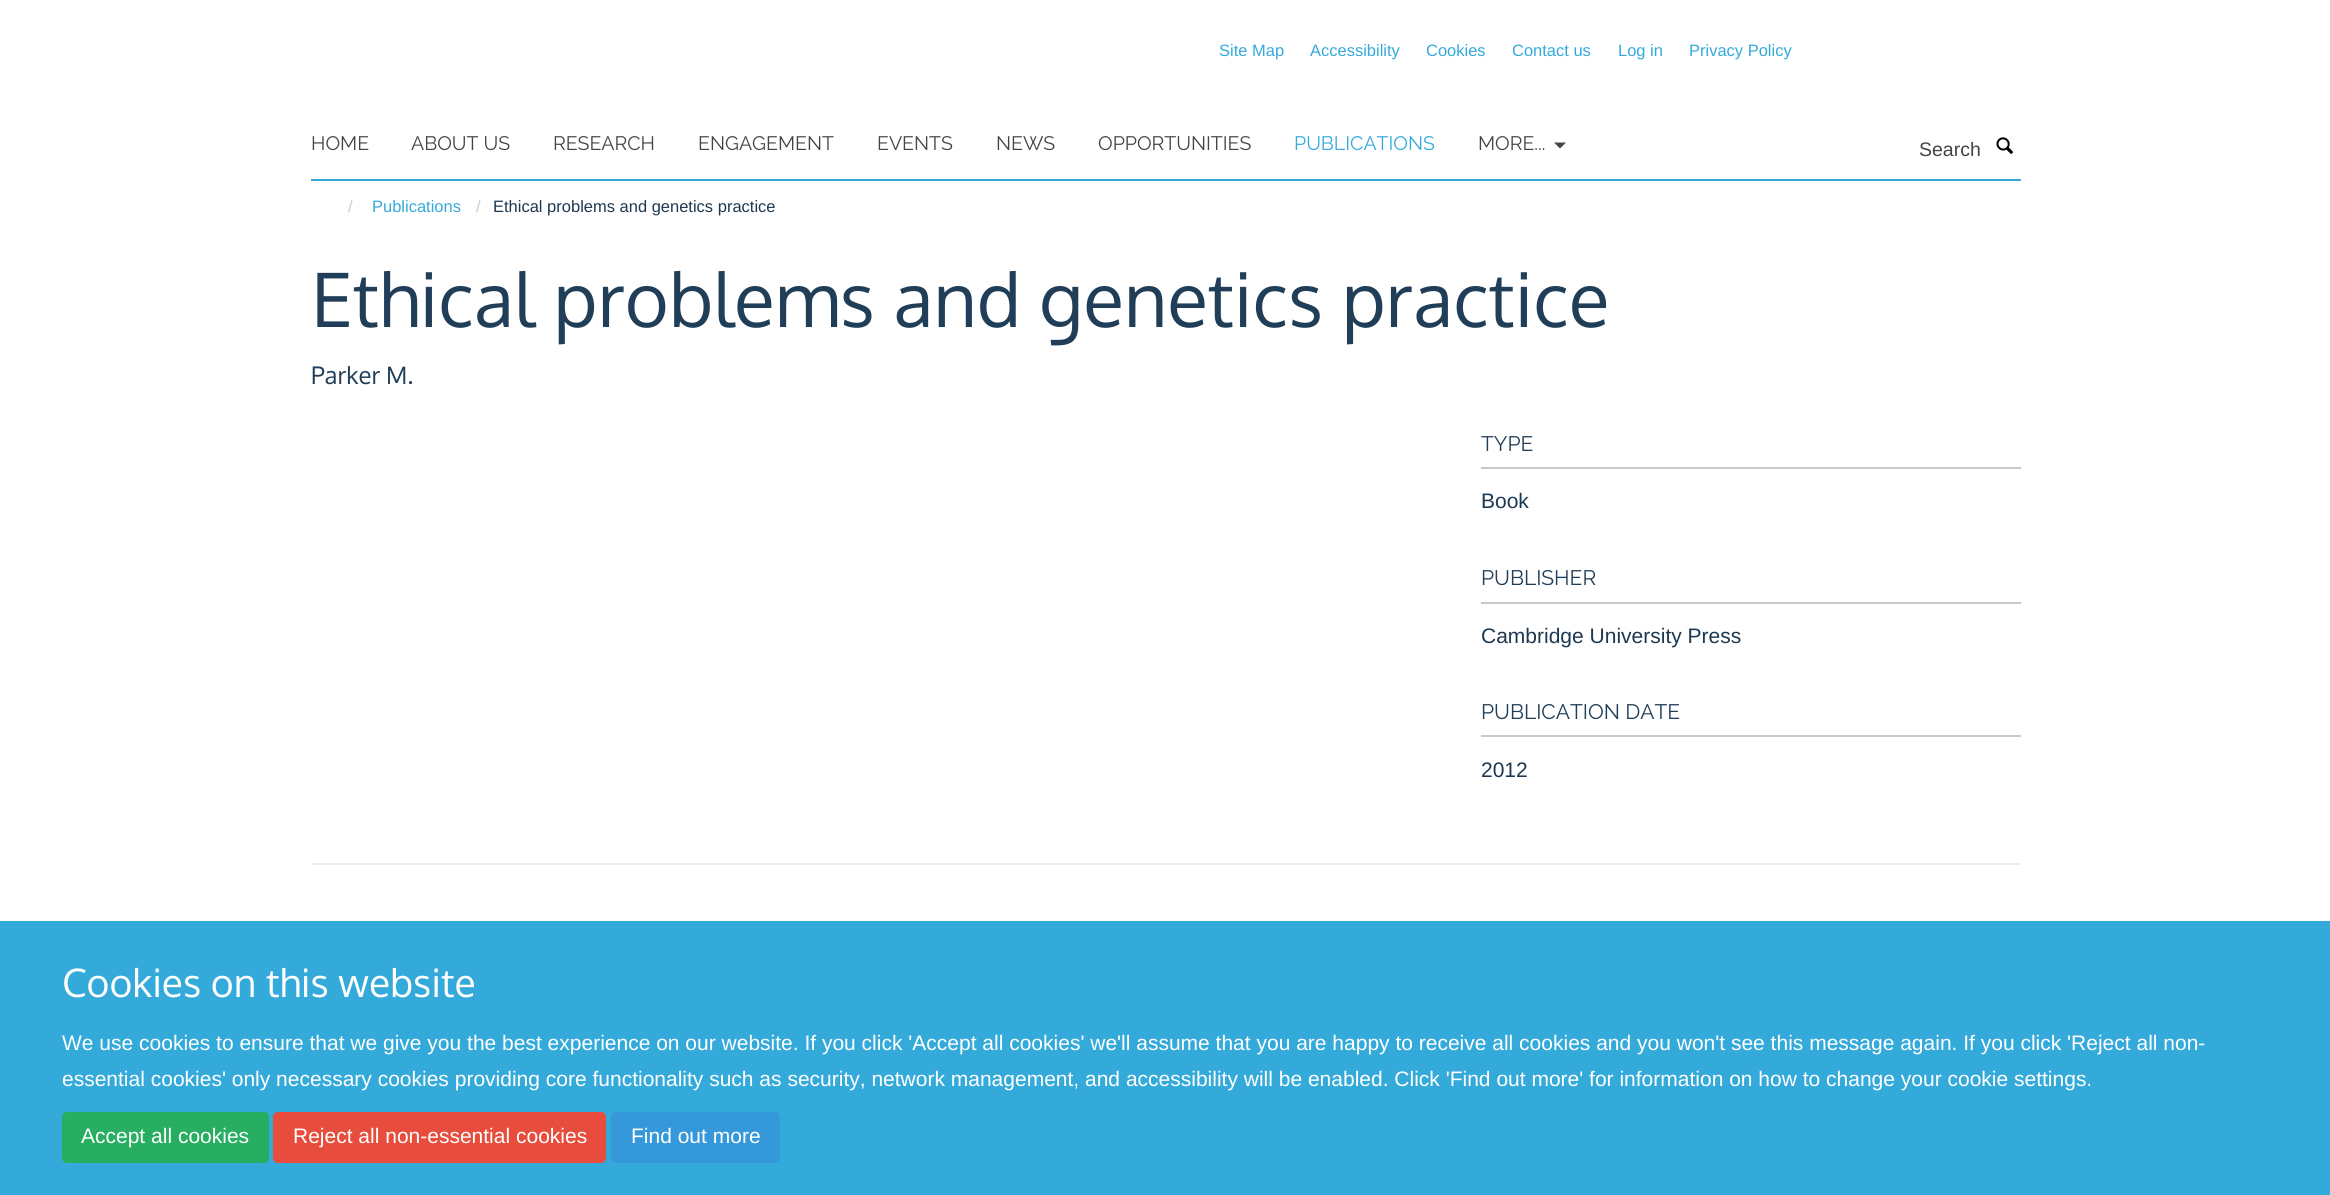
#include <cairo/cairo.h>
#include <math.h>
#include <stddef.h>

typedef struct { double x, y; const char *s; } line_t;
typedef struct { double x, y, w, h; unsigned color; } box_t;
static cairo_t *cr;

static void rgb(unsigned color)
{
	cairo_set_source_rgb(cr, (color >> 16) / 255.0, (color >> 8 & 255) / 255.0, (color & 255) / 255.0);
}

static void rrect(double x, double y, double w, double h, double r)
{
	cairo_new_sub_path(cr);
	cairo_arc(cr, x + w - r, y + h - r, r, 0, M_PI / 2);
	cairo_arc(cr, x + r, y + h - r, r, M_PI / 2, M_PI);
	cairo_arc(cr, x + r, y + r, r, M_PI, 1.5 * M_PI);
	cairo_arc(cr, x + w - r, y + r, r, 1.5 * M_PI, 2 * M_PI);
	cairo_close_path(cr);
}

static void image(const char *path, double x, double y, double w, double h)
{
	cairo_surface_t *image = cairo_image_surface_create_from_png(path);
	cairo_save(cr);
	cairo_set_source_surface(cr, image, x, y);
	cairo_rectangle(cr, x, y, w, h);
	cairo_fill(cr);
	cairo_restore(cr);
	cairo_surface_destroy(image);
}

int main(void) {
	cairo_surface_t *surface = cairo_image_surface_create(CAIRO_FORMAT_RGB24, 2330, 1195);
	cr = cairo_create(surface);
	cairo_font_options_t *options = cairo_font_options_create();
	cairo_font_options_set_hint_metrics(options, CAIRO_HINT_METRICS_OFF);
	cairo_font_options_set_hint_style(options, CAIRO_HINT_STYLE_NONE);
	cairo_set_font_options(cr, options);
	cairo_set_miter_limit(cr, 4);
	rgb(0xffffff);
	cairo_paint(cr);
	rgb(0x34aadb);
	cairo_rectangle(cr, 311, 179, 1710, 2);
	cairo_fill(cr);
	rgb(0x444444);
	cairo_new_path(cr);
	cairo_move_to(cr, 1554, 142.5);
	cairo_line_to(cr, 1566, 142.5);
	cairo_line_to(cr, 1560, 148.5);
	cairo_close_path(cr);
	cairo_fill(cr);
	image("img/1.png", 1996, 137, 17, 17);
	{
		static const box_t items[] = {
			{1481, 467, 540, 2, 0xc6cacf},
			{1481, 602, 540, 2, 0xc6cacf},
			{1481, 735, 540, 2, 0xc6cacf},
			{311, 863, 1710, 2, 0xeeeeee},
			{0, 921, 2330, 274, 0x34aadb},
		};
		for (size_t i = 0; i < sizeof items / sizeof *items; i++) {
			rgb(items[i].color);
			cairo_rectangle(cr, items[i].x, items[i].y, items[i].w, items[i].h);
			cairo_fill(cr);
		}
	}
	rgb(0x27ae60);
	rrect(63, 1113, 205, 49, 4);
	cairo_fill_preserve(cr);
	cairo_stroke(cr);
	rgb(0xe74c3c);
	rrect(274, 1113, 331, 49, 4);
	cairo_fill_preserve(cr);
	cairo_stroke(cr);
	rgb(0x3498db);
	rrect(612, 1113, 167, 49, 4);
	cairo_fill_preserve(cr);
	cairo_stroke(cr);
	cairo_select_font_face(cr, "Liberation Sans", CAIRO_FONT_SLANT_NORMAL, CAIRO_FONT_WEIGHT_NORMAL);
	cairo_set_font_size(cr, 16.5);
	rgb(0x34aadb);
	{
		static const line_t items[] = {
			{1219, 56, "Site Map"},
			{1310, 56, "Accessibility"},
			{1426, 56, "Cookies"},
			{1512, 56, "Contact us"},
			{1618, 56, "Log in"},
			{1689, 56, "Privacy Policy"},
		};
		for (size_t i = 0; i < sizeof items / sizeof *items; i++) {
			cairo_move_to(cr, items[i].x, items[i].y);
			cairo_show_text(cr, items[i].s);
		}
	}
	cairo_select_font_face(cr, "Raleway Thin", CAIRO_FONT_SLANT_NORMAL, CAIRO_FONT_WEIGHT_NORMAL);
	cairo_set_font_size(cr, 19.5);
	rgb(0x444444);
	{
		static const line_t items[] = {
			{311, 150, "HOME"},
			{411, 150, "ABOUT US"},
			{553, 150, "RESEARCH"},
			{698, 150, "ENGAGEMENT"},
			{877, 150, "EVENTS"},
			{996, 150, "NEWS"},
			{1098, 150, "OPPORTUNITIES"},
		};
		for (size_t i = 0; i < sizeof items / sizeof *items; i++) {
			cairo_move_to(cr, items[i].x, items[i].y);
			cairo_show_text(cr, items[i].s);
		}
	}
	rgb(0x34aadb);
	cairo_move_to(cr, 1294, 150);
	cairo_show_text(cr, "PUBLICATIONS");
	rgb(0x444444);
	cairo_move_to(cr, 1478, 150);
	cairo_show_text(cr, "MORE...");
	cairo_select_font_face(cr, "Liberation Sans", CAIRO_FONT_SLANT_NORMAL, CAIRO_FONT_WEIGHT_NORMAL);
	cairo_move_to(cr, 1919, 156);
	cairo_show_text(cr, "Search");
	cairo_set_font_size(cr, 16.5);
	rgb(0xcccccc);
	cairo_move_to(cr, 348, 212);
	cairo_show_text(cr, "/");
	rgb(0x34aadb);
	cairo_move_to(cr, 372, 212);
	cairo_show_text(cr, "Publications");
	rgb(0xcccccc);
	cairo_move_to(cr, 476, 212);
	cairo_show_text(cr, "/");
	rgb(0x1d3850);
	cairo_move_to(cr, 493, 212);
	cairo_show_text(cr, "Ethical problems and genetics practice");
	cairo_select_font_face(cr, "Oxygen", CAIRO_FONT_SLANT_NORMAL, CAIRO_FONT_WEIGHT_NORMAL);
	cairo_set_font_size(cr, 75);
	rgb(0x203e58);
	cairo_move_to(cr, 311, 327);
	cairo_show_text(cr, "Ethical problems and genetics practice");
	cairo_set_font_size(cr, 24);
	cairo_move_to(cr, 311, 384);
	cairo_show_text(cr, "Parker M.");
	cairo_select_font_face(cr, "Raleway Thin", CAIRO_FONT_SLANT_NORMAL, CAIRO_FONT_WEIGHT_NORMAL);
	cairo_set_font_size(cr, 21);
	cairo_move_to(cr, 1481, 451);
	cairo_show_text(cr, "TYPE");
	cairo_select_font_face(cr, "Liberation Sans", CAIRO_FONT_SLANT_NORMAL, CAIRO_FONT_WEIGHT_NORMAL);
	rgb(0x1d3850);
	cairo_move_to(cr, 1481, 508);
	cairo_show_text(cr, "Book");
	cairo_select_font_face(cr, "Raleway Thin", CAIRO_FONT_SLANT_NORMAL, CAIRO_FONT_WEIGHT_NORMAL);
	rgb(0x203e58);
	cairo_move_to(cr, 1481, 585);
	cairo_show_text(cr, "PUBLISHER");
	cairo_select_font_face(cr, "Liberation Sans", CAIRO_FONT_SLANT_NORMAL, CAIRO_FONT_WEIGHT_NORMAL);
	rgb(0x1d3850);
	cairo_move_to(cr, 1481, 643);
	cairo_show_text(cr, "Cambridge University Press");
	cairo_select_font_face(cr, "Raleway Thin", CAIRO_FONT_SLANT_NORMAL, CAIRO_FONT_WEIGHT_NORMAL);
	rgb(0x203e58);
	cairo_move_to(cr, 1481, 719);
	cairo_show_text(cr, "PUBLICATION DATE");
	cairo_select_font_face(cr, "Liberation Sans", CAIRO_FONT_SLANT_NORMAL, CAIRO_FONT_WEIGHT_NORMAL);
	rgb(0x1d3850);
	cairo_move_to(cr, 1481, 777);
	cairo_show_text(cr, "2012");
	cairo_select_font_face(cr, "Oxygen", CAIRO_FONT_SLANT_NORMAL, CAIRO_FONT_WEIGHT_NORMAL);
	cairo_set_font_size(cr, 39);
	rgb(0xffffff);
	cairo_move_to(cr, 62, 997);
	cairo_show_text(cr, "Cookies on this website");
	cairo_select_font_face(cr, "Liberation Sans", CAIRO_FONT_SLANT_NORMAL, CAIRO_FONT_WEIGHT_NORMAL);
	cairo_set_font_size(cr, 21);
	{
		static const line_t items[] = {
			{62, 1050, "We use cookies to ensure that we give you the best experience on our website. If you click 'Accept all cookies' we'll assume that you are happy to receive all cookies and you won't see this message again. If you click 'Reject all non-"},
			{62, 1086, "essential cookies' only necessary cookies providing core functionality such as security, network management, and accessibility will be enabled. Click 'Find out more' for information on how to change your cookie settings."},
			{81, 1143, "Accept all cookies"},
			{293, 1143, "Reject all non-essential cookies"},
			{631, 1143, "Find out more"},
		};
		for (size_t i = 0; i < sizeof items / sizeof *items; i++) {
			cairo_move_to(cr, items[i].x, items[i].y);
			cairo_show_text(cr, items[i].s);
		}
	}
	cairo_surface_write_to_png(surface, "page.png");
	cairo_font_options_destroy(options);
	cairo_destroy(cr);
	cairo_surface_destroy(surface);
	return 0;
}
